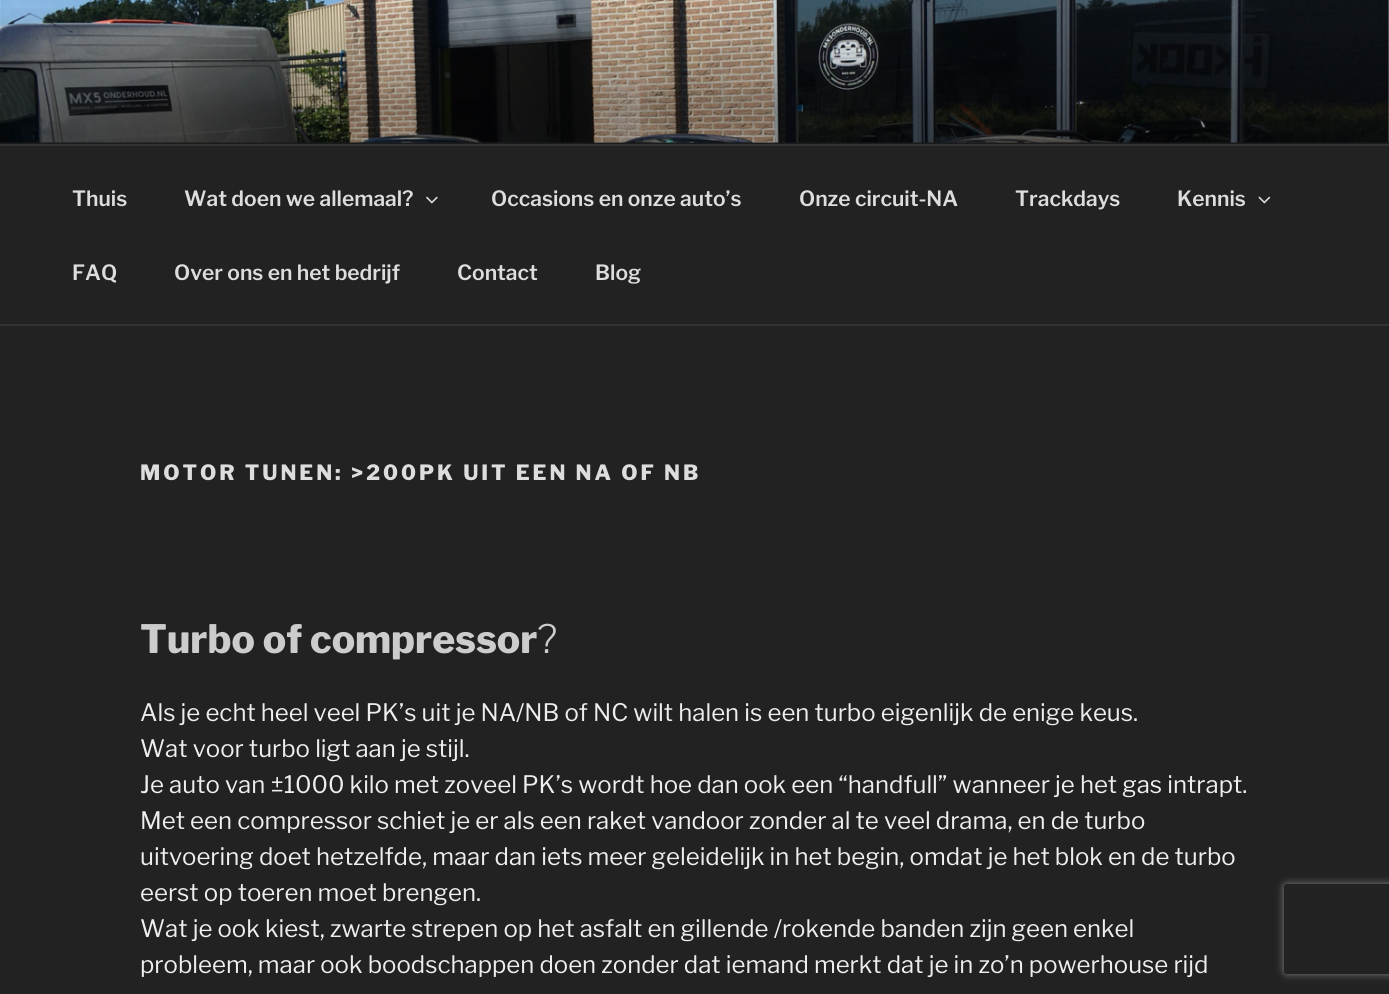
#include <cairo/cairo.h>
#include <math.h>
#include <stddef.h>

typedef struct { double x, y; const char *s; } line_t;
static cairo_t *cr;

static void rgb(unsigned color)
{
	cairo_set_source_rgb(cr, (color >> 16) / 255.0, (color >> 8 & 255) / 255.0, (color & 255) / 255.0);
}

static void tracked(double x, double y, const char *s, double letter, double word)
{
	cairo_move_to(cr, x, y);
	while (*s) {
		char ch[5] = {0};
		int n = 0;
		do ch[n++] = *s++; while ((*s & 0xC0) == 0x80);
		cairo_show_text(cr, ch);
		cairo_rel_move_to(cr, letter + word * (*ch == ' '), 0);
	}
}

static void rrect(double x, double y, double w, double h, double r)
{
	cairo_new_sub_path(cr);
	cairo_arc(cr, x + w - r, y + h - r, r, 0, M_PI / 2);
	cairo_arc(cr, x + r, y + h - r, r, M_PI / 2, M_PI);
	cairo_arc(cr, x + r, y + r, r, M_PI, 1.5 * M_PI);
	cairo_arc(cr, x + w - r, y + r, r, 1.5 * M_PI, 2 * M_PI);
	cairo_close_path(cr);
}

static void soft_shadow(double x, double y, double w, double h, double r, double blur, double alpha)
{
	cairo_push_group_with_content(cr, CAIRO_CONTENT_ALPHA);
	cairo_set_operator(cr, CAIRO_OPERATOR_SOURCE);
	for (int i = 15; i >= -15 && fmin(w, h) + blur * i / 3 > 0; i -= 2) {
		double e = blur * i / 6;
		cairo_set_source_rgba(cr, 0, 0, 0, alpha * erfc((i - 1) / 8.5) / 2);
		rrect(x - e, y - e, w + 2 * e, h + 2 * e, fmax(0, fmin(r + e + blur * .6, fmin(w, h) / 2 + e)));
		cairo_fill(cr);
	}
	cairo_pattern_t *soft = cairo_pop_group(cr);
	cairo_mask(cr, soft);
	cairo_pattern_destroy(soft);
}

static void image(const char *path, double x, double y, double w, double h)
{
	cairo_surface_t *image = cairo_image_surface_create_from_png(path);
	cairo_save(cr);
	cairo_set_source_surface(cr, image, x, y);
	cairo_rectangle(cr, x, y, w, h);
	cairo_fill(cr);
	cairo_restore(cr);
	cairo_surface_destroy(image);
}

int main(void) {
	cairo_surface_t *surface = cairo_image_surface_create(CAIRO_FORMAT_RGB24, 1389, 994);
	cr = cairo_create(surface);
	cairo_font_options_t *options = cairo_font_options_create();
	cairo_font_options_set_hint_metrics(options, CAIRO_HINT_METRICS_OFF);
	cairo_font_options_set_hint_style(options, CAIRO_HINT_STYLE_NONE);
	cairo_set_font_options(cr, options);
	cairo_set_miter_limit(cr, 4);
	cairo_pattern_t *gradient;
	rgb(0x222222);
	cairo_paint(cr);
	rgb(0x262626);
	cairo_rectangle(cr, 0, 0, 1389, 144);
	cairo_fill(cr);
	image("img/1.png", 0, 0, 1389, 143);
	gradient = cairo_pattern_create_linear(695, 0, 695, 144);
	cairo_pattern_add_color_stop_rgba(gradient, 0, 0, 0, 0, 0);
	cairo_pattern_add_color_stop_rgba(gradient, 0.75, 0, 0, 0, 0.3);
	cairo_pattern_add_color_stop_rgba(gradient, 1, 0, 0, 0, 0.3);
	cairo_set_source(cr, gradient);
	cairo_pattern_destroy(gradient);
	cairo_rectangle(cr, 0, 8, 1389, 136);
	cairo_fill(cr);
	rgb(0x333333);
	cairo_rectangle(cr, 0, 144, 1389, 2);
	cairo_fill(cr);
	cairo_rectangle(cr, 0, 324, 1389, 2);
	cairo_fill(cr);
	image("img/2.png", 426, 196, 12, 8);
	image("img/3.png", 1258, 196, 13, 8);
	cairo_save(cr);
	cairo_set_fill_rule(cr, CAIRO_FILL_RULE_EVEN_ODD);
	cairo_new_path(cr);
	cairo_move_to(cr, 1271, 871);
	cairo_line_to(cr, 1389, 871);
	cairo_line_to(cr, 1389, 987);
	cairo_line_to(cr, 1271, 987);
	cairo_close_path(cr);
	cairo_move_to(cr, 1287, 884);
	cairo_line_to(cr, 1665, 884);
	cairo_curve_to(cr, 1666.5, 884, 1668, 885.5, 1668, 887);
	cairo_line_to(cr, 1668, 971);
	cairo_curve_to(cr, 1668, 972.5, 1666.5, 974, 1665, 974);
	cairo_line_to(cr, 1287, 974);
	cairo_curve_to(cr, 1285.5, 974, 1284, 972.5, 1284, 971);
	cairo_line_to(cr, 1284, 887);
	cairo_curve_to(cr, 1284, 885.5, 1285.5, 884, 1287, 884);
	cairo_close_path(cr);
	cairo_clip(cr);
	rgb(0x808080);
	soft_shadow(1284, 884, 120, 90, 3, 4, 1);
	cairo_restore(cr);
	cairo_select_font_face(cr, "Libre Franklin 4 Thin", CAIRO_FONT_SLANT_NORMAL, CAIRO_FONT_WEIGHT_NORMAL);
	cairo_set_font_size(cr, 21);
	rgb(0xdddddd);
	{
		static const line_t items[] = {
			{72, 206, "Thuis"},
			{184, 206, "Wat doen we allemaal?"},
			{491, 206, "Occasions en onze auto’s"},
			{799, 206, "Onze circuit-NA"},
			{1015, 206, "Trackdays"},
			{1177, 206, "Kennis"},
			{72, 280, "FAQ"},
			{174, 280, "Over ons en het bedrijf"},
			{457, 280, "Contact"},
			{595, 280, "Blog"},
		};
		for (size_t i = 0; i < sizeof items / sizeof *items; i++) {
			cairo_move_to(cr, items[i].x, items[i].y);
			cairo_show_text(cr, items[i].s);
		}
	}
	cairo_select_font_face(cr, "Libre Franklin Thin", CAIRO_FONT_SLANT_NORMAL, CAIRO_FONT_WEIGHT_NORMAL);
	tracked(140, 480, "MOTOR TUNEN: >200PK UIT EEN NA OF NB", 2.95, 0);
	cairo_set_font_size(cr, 39);
	rgb(0xcccccc);
	cairo_move_to(cr, 140, 653);
	cairo_show_text(cr, "Turbo of compressor");
	cairo_select_font_face(cr, "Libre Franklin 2 Thin", CAIRO_FONT_SLANT_NORMAL, CAIRO_FONT_WEIGHT_NORMAL);
	cairo_move_to(cr, 537, 653);
	cairo_show_text(cr, "?");
	cairo_select_font_face(cr, "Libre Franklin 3 Thin", CAIRO_FONT_SLANT_NORMAL, CAIRO_FONT_WEIGHT_NORMAL);
	cairo_set_font_size(cr, 24);
	rgb(0xeeeeee);
	{
		static const line_t items[] = {
			{140, 721, "Als je echt heel veel PK’s uit je NA/NB of NC wilt halen is een turbo eigenlijk de enige keus."},
			{140, 757, "Wat voor turbo ligt aan je stijl."},
			{140, 793, "Je auto van ±1000 kilo met zoveel PK’s wordt hoe dan ook een “handfull” wanneer je het gas intrapt."},
			{140, 829, "Met een compressor schiet je er als een raket vandoor zonder al te veel drama, en de turbo"},
			{140, 865, "uitvoering doet hetzelfde, maar dan iets meer geleidelijk in het begin, omdat je het blok en de turbo"},
			{140, 901, "eerst op toeren moet brengen."},
			{140, 937, "Wat je ook kiest, zwarte strepen op het asfalt en gillende /rokende banden zijn geen enkel"},
			{140, 973, "probleem, maar ook boodschappen doen zonder dat iemand merkt dat je in zo’n powerhouse rijd"},
		};
		for (size_t i = 0; i < sizeof items / sizeof *items; i++) {
			cairo_move_to(cr, items[i].x, items[i].y);
			cairo_show_text(cr, items[i].s);
		}
	}
	cairo_surface_write_to_png(surface, "page.png");
	cairo_font_options_destroy(options);
	cairo_destroy(cr);
	cairo_surface_destroy(surface);
	return 0;
}
